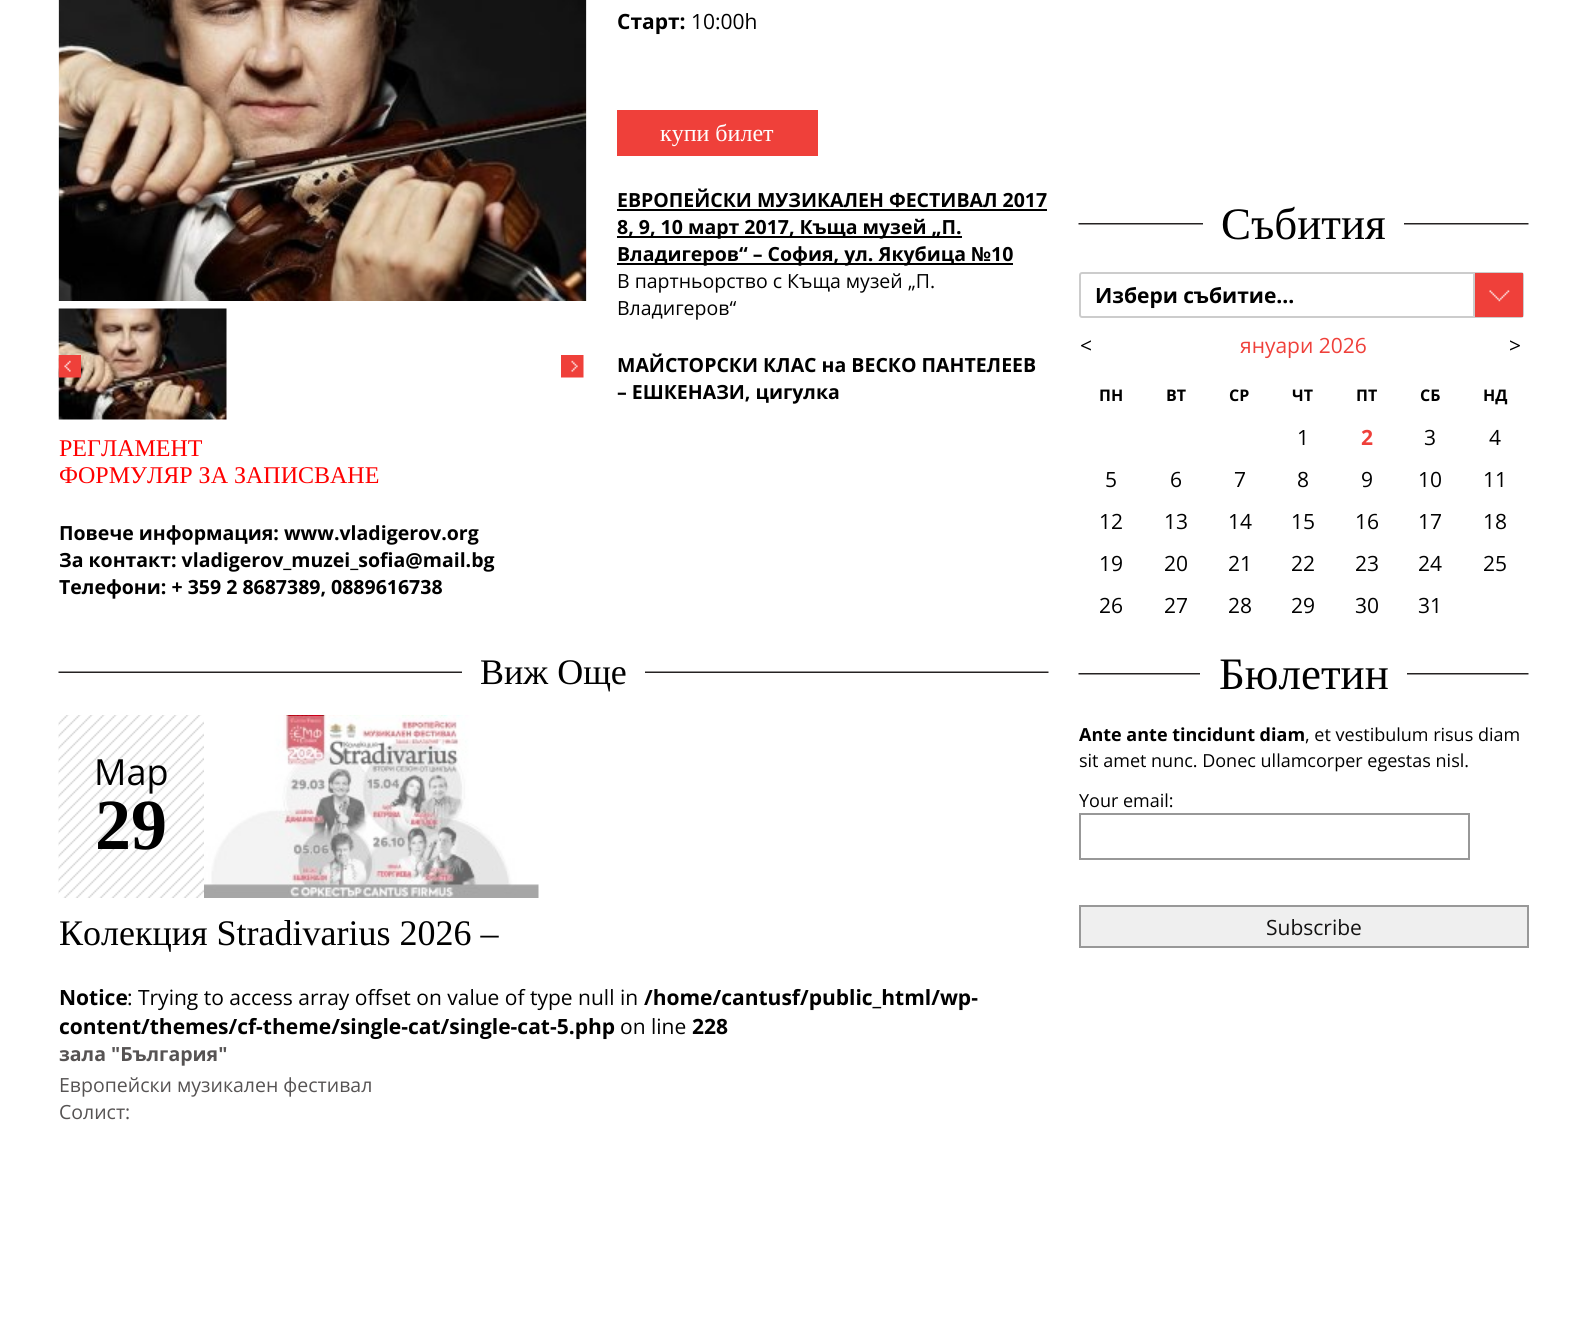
#include <cairo/cairo.h>
#include <math.h>
#include <stddef.h>

typedef struct { double x, y; const char *s; } line_t;
typedef struct { double x, y, w, h; unsigned color; } box_t;
static cairo_t *cr;

static void rgb(unsigned color)
{
	cairo_set_source_rgb(cr, (color >> 16) / 255.0, (color >> 8 & 255) / 255.0, (color & 255) / 255.0);
}

static void rrect(double x, double y, double w, double h, double r)
{
	cairo_new_sub_path(cr);
	cairo_arc(cr, x + w - r, y + h - r, r, 0, M_PI / 2);
	cairo_arc(cr, x + r, y + h - r, r, M_PI / 2, M_PI);
	cairo_arc(cr, x + r, y + r, r, M_PI, 1.5 * M_PI);
	cairo_arc(cr, x + w - r, y + r, r, 1.5 * M_PI, 2 * M_PI);
	cairo_close_path(cr);
}

static void image(const char *path, double x, double y, double w, double h)
{
	cairo_surface_t *image = cairo_image_surface_create_from_png(path);
	cairo_save(cr);
	cairo_set_source_surface(cr, image, x, y);
	cairo_rectangle(cr, x, y, w, h);
	cairo_fill(cr);
	cairo_restore(cr);
	cairo_surface_destroy(image);
}

int main(void) {
	cairo_surface_t *surface = cairo_image_surface_create(CAIRO_FORMAT_RGB24, 1586, 1327);
	cr = cairo_create(surface);
	cairo_font_options_t *options = cairo_font_options_create();
	cairo_font_options_set_hint_metrics(options, CAIRO_HINT_METRICS_OFF);
	cairo_font_options_set_hint_style(options, CAIRO_HINT_STYLE_NONE);
	cairo_set_font_options(cr, options);
	cairo_set_miter_limit(cr, 4);
	rgb(0xffffff);
	cairo_paint(cr);
	image("img/1.png", 58, 0, 529, 301);
	image("img/2.png", 58, 308, 169, 112);
	image("img/3.png", 58, 355, 23, 23);
	image("img/4.png", 561, 355, 23, 23);
	{
		static const box_t items[] = {
			{617, 110, 201, 46, 0xef403a},
			{617, 209, 430, 2, 0x000000},
			{617, 236, 345, 2, 0x000000},
			{617, 263, 396, 2, 0x000000},
		};
		for (size_t i = 0; i < sizeof items / sizeof *items; i++) {
			rgb(items[i].color);
			cairo_rectangle(cr, items[i].x, items[i].y, items[i].w, items[i].h);
			cairo_fill(cr);
		}
	}
	image("img/5.png", 58, 671, 991, 2);
	rgb(0xffffff);
	cairo_rectangle(cr, 462, 671, 183, 2);
	cairo_fill(cr);
	image("img/6.png", 58, 715, 146, 183);
	image("img/7.png", 204, 715, 335, 183);
	image("img/8.png", 1078, 223, 451, 2);
	cairo_rectangle(cr, 1203, 223, 201, 2);
	cairo_fill(cr);
	rrect(1080, 273, 443, 44, 2);
	rgb(0xcccccc);
	cairo_stroke(cr);
	rgb(0xef403a);
	cairo_rectangle(cr, 1475, 273, 48, 44);
	cairo_fill(cr);
	image("img/9.png", 1489, 290, 21, 12);
	rgb(0xcccccc);
	cairo_rectangle(cr, 1473, 273, 2, 44);
	cairo_fill(cr);
	image("img/8.png", 1078, 673, 451, 2);
	rgb(0xffffff);
	cairo_rectangle(cr, 1200, 673, 207, 2);
	cairo_fill(cr);
	cairo_rectangle(cr, 1080, 814, 389, 45);
	rgb(0x989898);
	cairo_stroke(cr);
	rgb(0xefefef);
	cairo_rectangle(cr, 1080, 906, 448, 41);
	cairo_fill_preserve(cr);
	rgb(0x989898);
	cairo_stroke(cr);
	cairo_select_font_face(cr, "Open Sans", CAIRO_FONT_SLANT_NORMAL, CAIRO_FONT_WEIGHT_BOLD);
	cairo_set_font_size(cr, 21);
	rgb(0x000000);
	cairo_move_to(cr, 617, 29);
	cairo_show_text(cr, "Старт:");
	cairo_select_font_face(cr, "Open Sans", CAIRO_FONT_SLANT_NORMAL, CAIRO_FONT_WEIGHT_NORMAL);
	cairo_move_to(cr, 691, 29);
	cairo_show_text(cr, "10:00h");
	cairo_select_font_face(cr, "Liberation Serif", CAIRO_FONT_SLANT_NORMAL, CAIRO_FONT_WEIGHT_NORMAL);
	cairo_set_font_size(cr, 24);
	rgb(0xfefefe);
	cairo_move_to(cr, 660, 141);
	cairo_show_text(cr, "купи билет");
	cairo_select_font_face(cr, "Open Sans", CAIRO_FONT_SLANT_NORMAL, CAIRO_FONT_WEIGHT_BOLD);
	cairo_set_font_size(cr, 19.5);
	rgb(0x000000);
	{
		static const line_t items[] = {
			{617, 207, "ЕВРОПЕЙСКИ МУЗИКАЛЕН ФЕСТИВАЛ 2017"},
			{617, 234, "8, 9, 10 март 2017, Къща музей „П."},
			{617, 261, "Владигеров“ – София, ул. Якубица №10"},
		};
		for (size_t i = 0; i < sizeof items / sizeof *items; i++) {
			cairo_move_to(cr, items[i].x, items[i].y);
			cairo_show_text(cr, items[i].s);
		}
	}
	cairo_select_font_face(cr, "Open Sans", CAIRO_FONT_SLANT_NORMAL, CAIRO_FONT_WEIGHT_NORMAL);
	cairo_move_to(cr, 617, 288);
	cairo_show_text(cr, "В партньорство с Къща музей „П.");
	cairo_move_to(cr, 617, 315);
	cairo_show_text(cr, "Владигеров“");
	cairo_select_font_face(cr, "Open Sans", CAIRO_FONT_SLANT_NORMAL, CAIRO_FONT_WEIGHT_BOLD);
	cairo_move_to(cr, 617, 372);
	cairo_show_text(cr, "МАЙСТОРСКИ КЛАС на ВЕСКО ПАНТЕЛЕЕВ");
	cairo_move_to(cr, 617, 399);
	cairo_show_text(cr, "– ЕШКЕНАЗИ, цигулка");
	cairo_select_font_face(cr, "Liberation Serif", CAIRO_FONT_SLANT_NORMAL, CAIRO_FONT_WEIGHT_NORMAL);
	cairo_set_font_size(cr, 24);
	rgb(0xff0000);
	cairo_move_to(cr, 59, 456);
	cairo_show_text(cr, "РЕГЛАМЕНТ");
	cairo_move_to(cr, 59, 483);
	cairo_show_text(cr, "ФОРМУЛЯР ЗА ЗАПИСВАНЕ");
	cairo_select_font_face(cr, "Open Sans", CAIRO_FONT_SLANT_NORMAL, CAIRO_FONT_WEIGHT_BOLD);
	cairo_set_font_size(cr, 19.5);
	rgb(0x000000);
	{
		static const line_t items[] = {
			{59, 540, "Повече информация: www.vladigerov.org"},
			{59, 567, "За контакт: vladigerov_muzei_sofia@mail.bg"},
			{59, 594, "Телефони: + 359 2 8687389, 0889616738"},
		};
		for (size_t i = 0; i < sizeof items / sizeof *items; i++) {
			cairo_move_to(cr, items[i].x, items[i].y);
			cairo_show_text(cr, items[i].s);
		}
	}
	cairo_select_font_face(cr, "Liberation Serif", CAIRO_FONT_SLANT_NORMAL, CAIRO_FONT_WEIGHT_NORMAL);
	cairo_set_font_size(cr, 36);
	cairo_move_to(cr, 480, 684);
	cairo_show_text(cr, "Виж Още");
	cairo_select_font_face(cr, "Open Sans", CAIRO_FONT_SLANT_NORMAL, CAIRO_FONT_WEIGHT_NORMAL);
	cairo_move_to(cr, 94, 785);
	cairo_show_text(cr, "Мар");
	cairo_select_font_face(cr, "Liberation Serif", CAIRO_FONT_SLANT_NORMAL, CAIRO_FONT_WEIGHT_BOLD);
	cairo_set_font_size(cr, 72);
	cairo_move_to(cr, 95, 849);
	cairo_show_text(cr, "29");
	cairo_select_font_face(cr, "Liberation Serif", CAIRO_FONT_SLANT_NORMAL, CAIRO_FONT_WEIGHT_NORMAL);
	cairo_set_font_size(cr, 36);
	cairo_move_to(cr, 59, 945);
	cairo_show_text(cr, "Колекция Stradivarius 2026 –");
	cairo_select_font_face(cr, "Open Sans", CAIRO_FONT_SLANT_NORMAL, CAIRO_FONT_WEIGHT_BOLD);
	cairo_set_font_size(cr, 21);
	cairo_move_to(cr, 59, 1005);
	cairo_show_text(cr, "Notice");
	cairo_select_font_face(cr, "Open Sans", CAIRO_FONT_SLANT_NORMAL, CAIRO_FONT_WEIGHT_NORMAL);
	cairo_move_to(cr, 127, 1005);
	cairo_show_text(cr, ": Trying to access array offset on value of type null in");
	cairo_select_font_face(cr, "Open Sans", CAIRO_FONT_SLANT_NORMAL, CAIRO_FONT_WEIGHT_BOLD);
	cairo_move_to(cr, 644, 1005);
	cairo_show_text(cr, "/home/cantusf/public_html/wp-");
	cairo_move_to(cr, 59, 1034);
	cairo_show_text(cr, "content/themes/cf-theme/single-cat/single-cat-5.php");
	cairo_select_font_face(cr, "Open Sans", CAIRO_FONT_SLANT_NORMAL, CAIRO_FONT_WEIGHT_NORMAL);
	cairo_move_to(cr, 620, 1034);
	cairo_show_text(cr, "on line");
	cairo_select_font_face(cr, "Open Sans", CAIRO_FONT_SLANT_NORMAL, CAIRO_FONT_WEIGHT_BOLD);
	cairo_move_to(cr, 692, 1034);
	cairo_show_text(cr, "228");
	cairo_set_font_size(cr, 19.5);
	rgb(0x565353);
	cairo_move_to(cr, 59, 1061);
	cairo_show_text(cr, "зала \"България\"");
	cairo_select_font_face(cr, "Open Sans", CAIRO_FONT_SLANT_NORMAL, CAIRO_FONT_WEIGHT_NORMAL);
	cairo_move_to(cr, 59, 1092);
	cairo_show_text(cr, "Европейски музикален фестивал");
	cairo_move_to(cr, 59, 1119);
	cairo_show_text(cr, "Солист:");
	cairo_select_font_face(cr, "Liberation Serif", CAIRO_FONT_SLANT_NORMAL, CAIRO_FONT_WEIGHT_NORMAL);
	cairo_set_font_size(cr, 45);
	rgb(0x000000);
	cairo_move_to(cr, 1221, 239);
	cairo_show_text(cr, "Събития");
	cairo_select_font_face(cr, "Open Sans", CAIRO_FONT_SLANT_NORMAL, CAIRO_FONT_WEIGHT_BOLD);
	cairo_set_font_size(cr, 21);
	cairo_move_to(cr, 1095, 303);
	cairo_show_text(cr, "Избери събитие...");
	cairo_select_font_face(cr, "Open Sans", CAIRO_FONT_SLANT_NORMAL, CAIRO_FONT_WEIGHT_NORMAL);
	rgb(0xef403a);
	cairo_move_to(cr, 1240, 353);
	cairo_show_text(cr, "януари 2026");
	rgb(0x000000);
	cairo_move_to(cr, 1080, 353);
	cairo_show_text(cr, "<");
	cairo_move_to(cr, 1509, 353);
	cairo_show_text(cr, ">");
	cairo_select_font_face(cr, "Open Sans", CAIRO_FONT_SLANT_NORMAL, CAIRO_FONT_WEIGHT_BOLD);
	cairo_set_font_size(cr, 16);
	{
		static const line_t items[] = {
			{1099, 401, "ПН"},
			{1166, 401, "ВТ"},
			{1229, 401, "СР"},
			{1292, 401, "ЧТ"},
			{1356, 401, "ПТ"},
			{1420, 401, "СБ"},
			{1483, 401, "НД"},
		};
		for (size_t i = 0; i < sizeof items / sizeof *items; i++) {
			cairo_move_to(cr, items[i].x, items[i].y);
			cairo_show_text(cr, items[i].s);
		}
	}
	cairo_select_font_face(cr, "Open Sans", CAIRO_FONT_SLANT_NORMAL, CAIRO_FONT_WEIGHT_NORMAL);
	cairo_set_font_size(cr, 21);
	cairo_move_to(cr, 1297, 445);
	cairo_show_text(cr, "1");
	cairo_select_font_face(cr, "Open Sans", CAIRO_FONT_SLANT_NORMAL, CAIRO_FONT_WEIGHT_BOLD);
	rgb(0xef403a);
	cairo_move_to(cr, 1361, 445);
	cairo_show_text(cr, "2");
	cairo_select_font_face(cr, "Open Sans", CAIRO_FONT_SLANT_NORMAL, CAIRO_FONT_WEIGHT_NORMAL);
	rgb(0x000000);
	{
		static const line_t items[] = {
			{1424, 445, "3"},
			{1489, 445, "4"},
			{1105, 487, "5"},
			{1170, 487, "6"},
			{1234, 487, "7"},
			{1297, 487, "8"},
			{1361, 487, "9"},
			{1418, 487, "10"},
			{1483, 487, "11"},
			{1099, 529, "12"},
			{1164, 529, "13"},
			{1228, 529, "14"},
			{1291, 529, "15"},
			{1355, 529, "16"},
			{1418, 529, "17"},
			{1483, 529, "18"},
			{1099, 571, "19"},
			{1164, 571, "20"},
			{1228, 571, "21"},
			{1291, 571, "22"},
			{1355, 571, "23"},
			{1418, 571, "24"},
			{1483, 571, "25"},
			{1099, 613, "26"},
			{1164, 613, "27"},
			{1228, 613, "28"},
			{1291, 613, "29"},
			{1355, 613, "30"},
			{1418, 613, "31"},
		};
		for (size_t i = 0; i < sizeof items / sizeof *items; i++) {
			cairo_move_to(cr, items[i].x, items[i].y);
			cairo_show_text(cr, items[i].s);
		}
	}
	cairo_select_font_face(cr, "Liberation Serif", CAIRO_FONT_SLANT_NORMAL, CAIRO_FONT_WEIGHT_NORMAL);
	cairo_set_font_size(cr, 45);
	cairo_move_to(cr, 1219, 689);
	cairo_show_text(cr, "Бюлетин");
	cairo_select_font_face(cr, "Open Sans", CAIRO_FONT_SLANT_NORMAL, CAIRO_FONT_WEIGHT_BOLD);
	cairo_set_font_size(cr, 18);
	cairo_move_to(cr, 1079, 741);
	cairo_show_text(cr, "Ante ante tincidunt diam");
	cairo_select_font_face(cr, "Open Sans", CAIRO_FONT_SLANT_NORMAL, CAIRO_FONT_WEIGHT_NORMAL);
	{
		static const line_t items[] = {
			{1305, 741, ", et vestibulum risus diam"},
			{1079, 767, "sit amet nunc. Donec ullamcorper egestas nisl."},
			{1079, 807, "Your email:"},
		};
		for (size_t i = 0; i < sizeof items / sizeof *items; i++) {
			cairo_move_to(cr, items[i].x, items[i].y);
			cairo_show_text(cr, items[i].s);
		}
	}
	cairo_set_font_size(cr, 21);
	rgb(0x131212);
	cairo_move_to(cr, 1266, 935);
	cairo_show_text(cr, "Subscribe");
	cairo_surface_write_to_png(surface, "page.png");
	cairo_font_options_destroy(options);
	cairo_destroy(cr);
	cairo_surface_destroy(surface);
	return 0;
}
